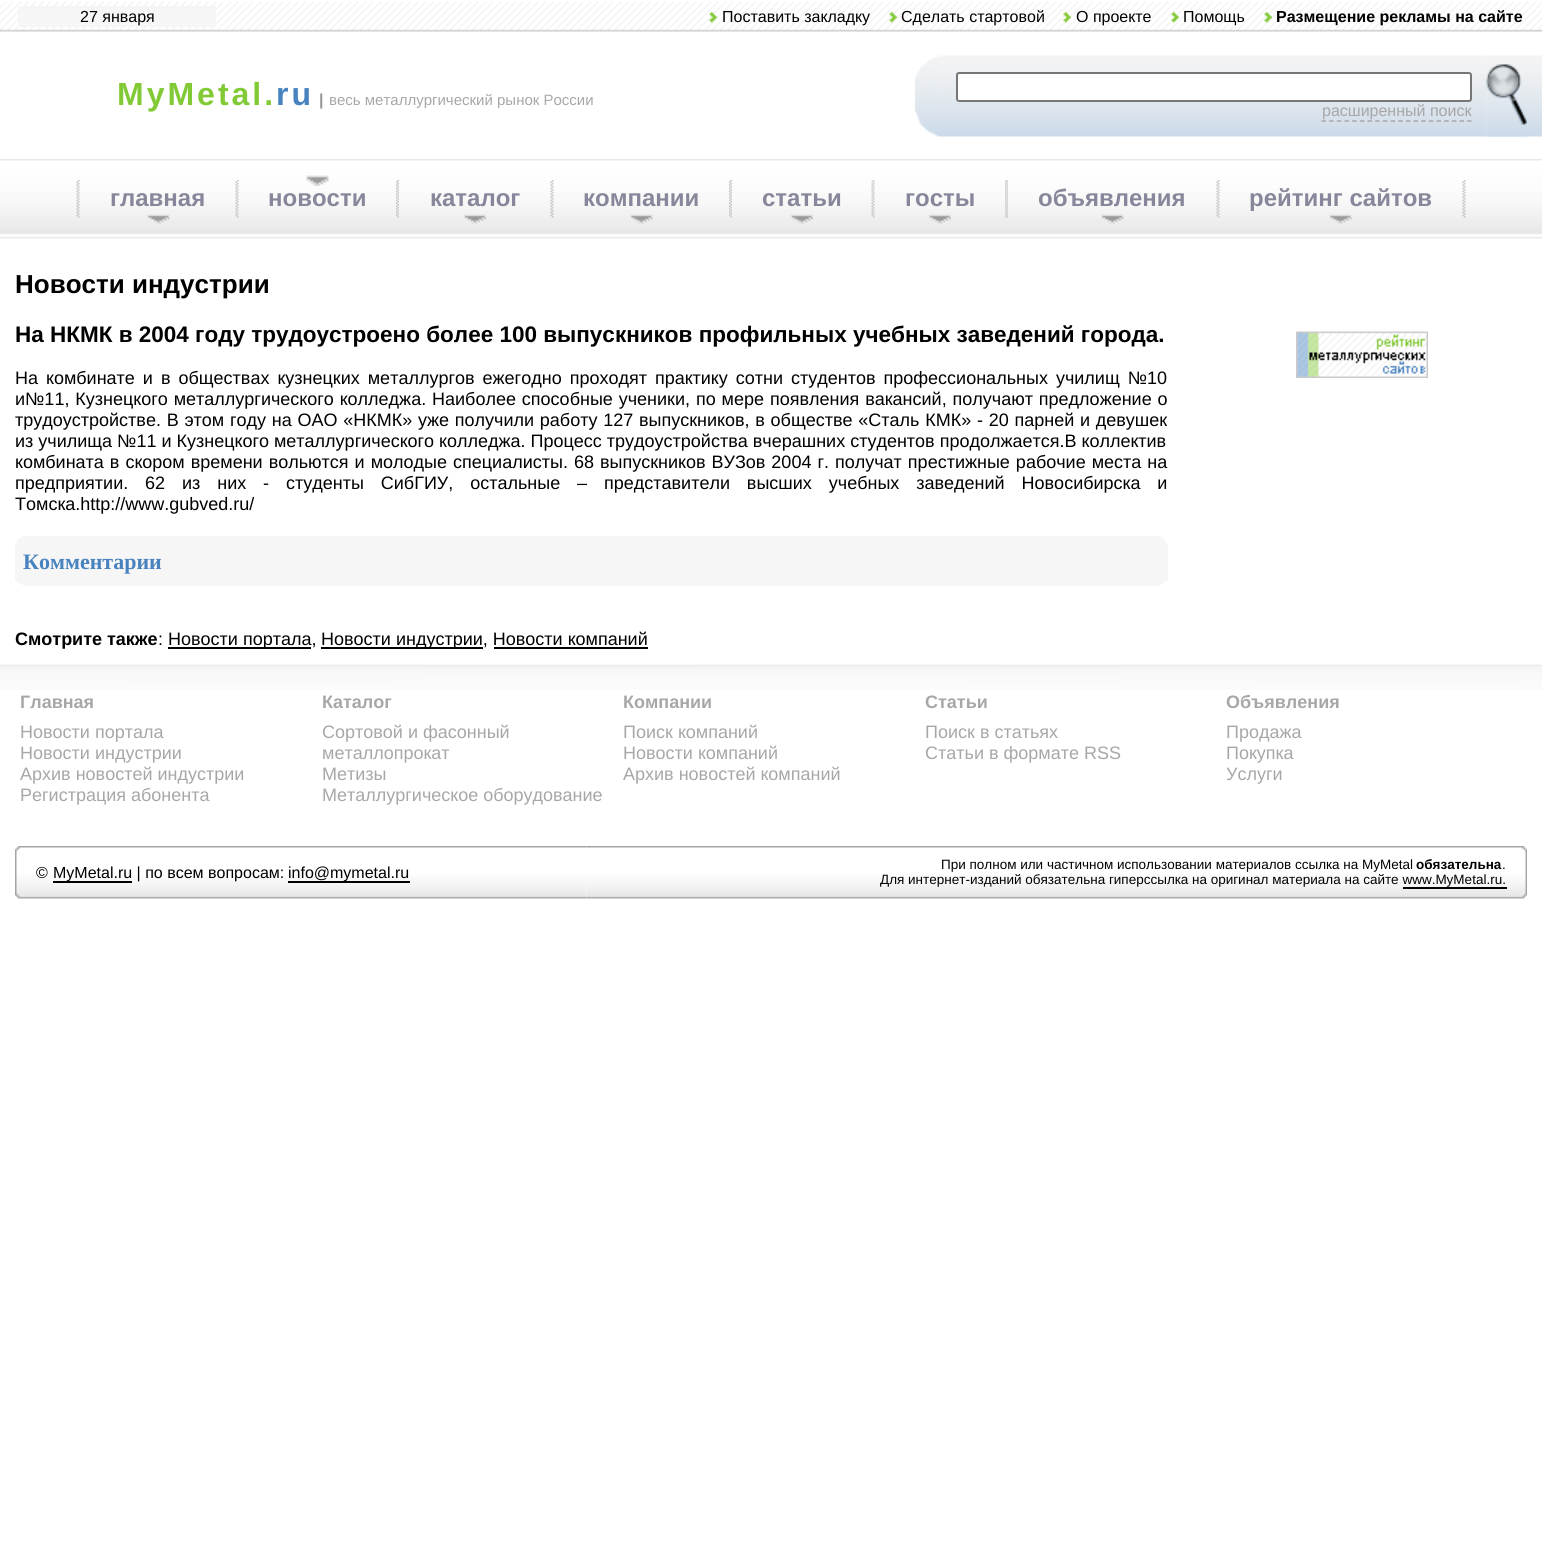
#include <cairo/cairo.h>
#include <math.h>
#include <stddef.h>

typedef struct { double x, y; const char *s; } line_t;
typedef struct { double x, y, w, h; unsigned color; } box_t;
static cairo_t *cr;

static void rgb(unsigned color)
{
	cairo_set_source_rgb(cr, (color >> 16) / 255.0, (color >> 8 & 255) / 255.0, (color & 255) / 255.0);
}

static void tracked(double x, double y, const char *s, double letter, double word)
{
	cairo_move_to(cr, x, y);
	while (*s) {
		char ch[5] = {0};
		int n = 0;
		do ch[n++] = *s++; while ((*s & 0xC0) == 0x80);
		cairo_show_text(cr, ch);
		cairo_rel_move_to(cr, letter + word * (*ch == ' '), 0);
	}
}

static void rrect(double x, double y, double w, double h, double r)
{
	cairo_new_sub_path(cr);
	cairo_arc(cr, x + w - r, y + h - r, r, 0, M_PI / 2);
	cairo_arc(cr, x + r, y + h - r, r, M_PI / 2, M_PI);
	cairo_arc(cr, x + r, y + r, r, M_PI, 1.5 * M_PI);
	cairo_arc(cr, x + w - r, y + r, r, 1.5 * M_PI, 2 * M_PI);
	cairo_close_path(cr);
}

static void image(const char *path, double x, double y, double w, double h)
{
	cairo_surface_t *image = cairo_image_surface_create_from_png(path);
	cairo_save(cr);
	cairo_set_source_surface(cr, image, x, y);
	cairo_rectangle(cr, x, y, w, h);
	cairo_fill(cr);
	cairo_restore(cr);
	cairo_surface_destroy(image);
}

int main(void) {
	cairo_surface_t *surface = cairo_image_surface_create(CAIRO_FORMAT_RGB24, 1542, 1552);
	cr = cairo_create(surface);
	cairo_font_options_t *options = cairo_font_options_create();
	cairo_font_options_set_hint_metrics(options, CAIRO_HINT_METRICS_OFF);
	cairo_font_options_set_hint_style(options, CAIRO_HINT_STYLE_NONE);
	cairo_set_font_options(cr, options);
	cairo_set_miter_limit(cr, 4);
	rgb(0xffffff);
	cairo_paint(cr);
	image("img/1.png", 0, 1, 1542, 31);
	rgb(0xf6f6f6);
	cairo_rectangle(cr, 18, 6, 198, 21);
	cairo_fill(cr);
	image("img/2.png", 709, 12, 8, 11);
	image("img/3.png", 889, 12, 8, 11);
	image("img/4.png", 1063, 12, 8, 11);
	image("img/5.png", 1171, 12, 8, 11);
	image("img/6.png", 1264, 12, 8, 11);
	image("img/7.png", 915, 55, 27, 82);
	image("img/8.png", 942, 55, 545, 82);
	rgb(0xffffff);
	rrect(957, 73, 514, 28, 2);
	cairo_fill_preserve(cr);
	rgb(0x767676);
	cairo_stroke(cr);
	cairo_new_path(cr);
	cairo_move_to(cr, 1321.5, 121);
	cairo_line_to(cr, 1471.5, 121);
	rgb(0xa7a7a7);
	cairo_set_line_width(cr, 1.5);
	cairo_set_dash(cr, (double[]){4.5, 3.17}, 2, 0);
	cairo_stroke(cr);
	image("img/9.png", 1486, 55, 56, 82);
	image("img/10.png", 1486, 64, 41, 73);
	image("img/11.png", 0, 159, 1542, 80);
	image("img/12.png", 76, 180, 4, 38);
	image("img/13.png", 147, 214, 23, 10);
	image("img/12.png", 235, 180, 4, 38);
	image("img/14.png", 306, 175, 23, 11);
	image("img/15.png", 396, 180, 3, 38);
	image("img/16.png", 463, 214, 23, 10);
	image("img/12.png", 550, 180, 4, 38);
	image("img/17.png", 630, 214, 23, 10);
	image("img/15.png", 729, 180, 3, 38);
	image("img/16.png", 790, 214, 23, 10);
	image("img/12.png", 871, 180, 4, 38);
	image("img/16.png", 928, 214, 23, 10);
	cairo_set_source_rgba(cr, 0.741, 0.741, 0.741, 0.5);
	cairo_rectangle(cr, 1005, 180, 3, 38);
	cairo_fill(cr);
	image("img/18.png", 1101, 214, 23, 10);
	image("img/12.png", 1216, 180, 4, 38);
	image("img/18.png", 1329, 214, 23, 10);
	image("img/12.png", 1462, 180, 4, 38);
	{
		static const box_t items[] = {
			{23, 536, 1137, 1, 0xf6f6f6},
			{20, 537, 1143, 2, 0xf6f6f6},
			{18, 539, 1147, 1, 0xf6f6f6},
			{17, 540, 1149, 3, 0xf6f6f6},
			{15, 543, 1153, 38, 0xf6f6f6},
			{18, 581, 1147, 2, 0xf6f6f6},
			{20, 583, 1143, 1, 0xf6f6f6},
			{23, 584, 1137, 2, 0xf6f6f6},
			{168, 647, 143, 2, 0x000000},
			{321, 647, 162, 2, 0x000000},
			{494, 647, 154, 2, 0x000000},
		};
		for (size_t i = 0; i < sizeof items / sizeof *items; i++) {
			rgb(items[i].color);
			cairo_rectangle(cr, items[i].x, items[i].y, items[i].w, items[i].h);
			cairo_fill(cr);
		}
	}
	image("img/19.png", 1296, 331, 132, 47);
	image("img/20.png", 0, 664, 1542, 26);
	image("img/21.png", 15, 846, 6, 53);
	image("img/22.png", 21, 846, 566, 53);
	cairo_rectangle(cr, 53, 881, 79, 2);
	cairo_fill(cr);
	cairo_rectangle(cr, 288, 881, 122, 2);
	cairo_fill(cr);
	image("img/23.png", 586, 846, 935, 53);
	cairo_rectangle(cr, 1403, 887, 104, 2);
	cairo_fill(cr);
	image("img/24.png", 1521, 846, 6, 53);
	cairo_select_font_face(cr, "Liberation Sans", CAIRO_FONT_SLANT_NORMAL, CAIRO_FONT_WEIGHT_NORMAL);
	cairo_set_font_size(cr, 16);
	{
		static const line_t items[] = {
			{80, 22, "27 января"},
			{722, 22, "Поставить закладку"},
			{901, 22, "Сделать стартовой"},
			{1076, 22, "О проекте"},
			{1183, 22, "Помощь"},
		};
		for (size_t i = 0; i < sizeof items / sizeof *items; i++) {
			cairo_move_to(cr, items[i].x, items[i].y);
			cairo_show_text(cr, items[i].s);
		}
	}
	cairo_select_font_face(cr, "Liberation Sans", CAIRO_FONT_SLANT_NORMAL, CAIRO_FONT_WEIGHT_BOLD);
	cairo_move_to(cr, 1276, 22);
	cairo_show_text(cr, "Размещение рекламы на сайте");
	cairo_set_font_size(cr, 32);
	rgb(0x82c936);
	tracked(117, 105, "MyMetal.", 3, 0);
	rgb(0x4883c0);
	tracked(276, 105, "ru", 3, 0);
	cairo_set_font_size(cr, 16);
	rgb(0x979797);
	cairo_move_to(cr, 319, 105);
	cairo_show_text(cr, "|");
	cairo_select_font_face(cr, "Liberation Sans", CAIRO_FONT_SLANT_NORMAL, CAIRO_FONT_WEIGHT_NORMAL);
	cairo_set_font_size(cr, 15);
	rgb(0xa7a7a7);
	cairo_move_to(cr, 329, 105);
	cairo_show_text(cr, "весь металлургический рынок России");
	cairo_set_font_size(cr, 16);
	cairo_move_to(cr, 1322, 116);
	cairo_show_text(cr, "расширенный поиск");
	cairo_select_font_face(cr, "Liberation Sans", CAIRO_FONT_SLANT_NORMAL, CAIRO_FONT_WEIGHT_BOLD);
	cairo_set_font_size(cr, 24);
	rgb(0x87879b);
	{
		static const line_t items[] = {
			{110, 206, "главная"},
			{268, 206, "новости"},
			{430, 206, "каталог"},
			{583, 206, "компании"},
			{762, 206, "статьи"},
			{905, 206, "госты"},
			{1038, 206, "объявления"},
			{1249, 206, "рейтинг сайтов"},
		};
		for (size_t i = 0; i < sizeof items / sizeof *items; i++) {
			cairo_move_to(cr, items[i].x, items[i].y);
			cairo_show_text(cr, items[i].s);
		}
	}
	cairo_set_font_size(cr, 26);
	rgb(0x000000);
	cairo_move_to(cr, 15, 293);
	cairo_show_text(cr, "Новости индустрии");
	cairo_set_font_size(cr, 22.5);
	cairo_move_to(cr, 15, 342);
	cairo_show_text(cr, "На НКМК в 2004 году трудоустроено более 100 выпускников профильных учебных заведений города.");
	cairo_select_font_face(cr, "Liberation Sans", CAIRO_FONT_SLANT_NORMAL, CAIRO_FONT_WEIGHT_NORMAL);
	cairo_set_font_size(cr, 18);
	tracked(15, 384, "На комбинате и в обществах кузнецких металлургов ежегодно проходят практику сотни студентов профессиональных училищ №10", 0, 3);
	tracked(15, 405, "и№11, Кузнецкого металлургического колледжа. Наиболее способные ученики, по мере появления вакансий, получают предложение о", 0, 0.9);
	tracked(15, 426, "трудоустройстве. В этом году на ОАО «НКМК» уже получили работу 127 выпускников, в обществе «Сталь КМК» - 20 парней и девушек", 0, 0.75);
	cairo_move_to(cr, 15, 447);
	cairo_show_text(cr, "из училища №11 и Кузнецкого металлургического колледжа. Процесс трудоустройства вчерашних студентов продолжается.В коллектив");
	tracked(15, 468, "комбината в скором времени вольются и молодые специалисты. 68 выпускников ВУЗов 2004 г. получат престижные рабочие места на", 0, 1);
	tracked(15, 489, "предприятии. 62 из них - студенты СибГИУ, остальные – представители высших учебных заведений Новосибирска и", 0, 11.9);
	cairo_move_to(cr, 15, 510);
	cairo_show_text(cr, "Томска.http://www.gubved.ru/");
	cairo_select_font_face(cr, "Liberation Serif", CAIRO_FONT_SLANT_NORMAL, CAIRO_FONT_WEIGHT_BOLD);
	cairo_set_font_size(cr, 22);
	rgb(0x4883c0);
	cairo_move_to(cr, 23, 569);
	cairo_show_text(cr, "Комментарии");
	cairo_select_font_face(cr, "Liberation Sans", CAIRO_FONT_SLANT_NORMAL, CAIRO_FONT_WEIGHT_BOLD);
	cairo_set_font_size(cr, 18);
	rgb(0x000000);
	cairo_move_to(cr, 15, 645);
	cairo_show_text(cr, "Смотрите также");
	cairo_select_font_face(cr, "Liberation Sans", CAIRO_FONT_SLANT_NORMAL, CAIRO_FONT_WEIGHT_NORMAL);
	{
		static const line_t items[] = {
			{158, 645, ":"},
			{168, 645, "Новости портала,"},
			{321, 645, "Новости индустрии, Новости компаний"},
		};
		for (size_t i = 0; i < sizeof items / sizeof *items; i++) {
			cairo_move_to(cr, items[i].x, items[i].y);
			cairo_show_text(cr, items[i].s);
		}
	}
	cairo_select_font_face(cr, "Liberation Sans", CAIRO_FONT_SLANT_NORMAL, CAIRO_FONT_WEIGHT_BOLD);
	rgb(0xa7a7a7);
	cairo_move_to(cr, 20, 708);
	cairo_show_text(cr, "Главная");
	cairo_select_font_face(cr, "Liberation Sans", CAIRO_FONT_SLANT_NORMAL, CAIRO_FONT_WEIGHT_NORMAL);
	{
		static const line_t items[] = {
			{20, 738, "Новости портала"},
			{20, 759, "Новости индустрии"},
			{20, 780, "Архив новостей индустрии"},
			{20, 801, "Регистрация абонента"},
		};
		for (size_t i = 0; i < sizeof items / sizeof *items; i++) {
			cairo_move_to(cr, items[i].x, items[i].y);
			cairo_show_text(cr, items[i].s);
		}
	}
	cairo_select_font_face(cr, "Liberation Sans", CAIRO_FONT_SLANT_NORMAL, CAIRO_FONT_WEIGHT_BOLD);
	cairo_move_to(cr, 322, 708);
	cairo_show_text(cr, "Каталог");
	cairo_select_font_face(cr, "Liberation Sans", CAIRO_FONT_SLANT_NORMAL, CAIRO_FONT_WEIGHT_NORMAL);
	{
		static const line_t items[] = {
			{322, 738, "Сортовой и фасонный"},
			{322, 759, "металлопрокат"},
			{322, 780, "Метизы"},
			{322, 801, "Металлургическое оборудование"},
		};
		for (size_t i = 0; i < sizeof items / sizeof *items; i++) {
			cairo_move_to(cr, items[i].x, items[i].y);
			cairo_show_text(cr, items[i].s);
		}
	}
	cairo_select_font_face(cr, "Liberation Sans", CAIRO_FONT_SLANT_NORMAL, CAIRO_FONT_WEIGHT_BOLD);
	cairo_move_to(cr, 623, 708);
	cairo_show_text(cr, "Компании");
	cairo_select_font_face(cr, "Liberation Sans", CAIRO_FONT_SLANT_NORMAL, CAIRO_FONT_WEIGHT_NORMAL);
	{
		static const line_t items[] = {
			{623, 738, "Поиск компаний"},
			{623, 759, "Новости компаний"},
			{623, 780, "Архив новостей компаний"},
		};
		for (size_t i = 0; i < sizeof items / sizeof *items; i++) {
			cairo_move_to(cr, items[i].x, items[i].y);
			cairo_show_text(cr, items[i].s);
		}
	}
	cairo_select_font_face(cr, "Liberation Sans", CAIRO_FONT_SLANT_NORMAL, CAIRO_FONT_WEIGHT_BOLD);
	cairo_move_to(cr, 925, 708);
	cairo_show_text(cr, "Статьи");
	cairo_select_font_face(cr, "Liberation Sans", CAIRO_FONT_SLANT_NORMAL, CAIRO_FONT_WEIGHT_NORMAL);
	cairo_move_to(cr, 925, 738);
	cairo_show_text(cr, "Поиск в статьях");
	cairo_move_to(cr, 925, 759);
	cairo_show_text(cr, "Статьи в формате RSS");
	cairo_select_font_face(cr, "Liberation Sans", CAIRO_FONT_SLANT_NORMAL, CAIRO_FONT_WEIGHT_BOLD);
	cairo_move_to(cr, 1226, 708);
	cairo_show_text(cr, "Объявления");
	cairo_select_font_face(cr, "Liberation Sans", CAIRO_FONT_SLANT_NORMAL, CAIRO_FONT_WEIGHT_NORMAL);
	{
		static const line_t items[] = {
			{1226, 738, "Продажа"},
			{1226, 759, "Покупка"},
			{1226, 780, "Услуги"},
		};
		for (size_t i = 0; i < sizeof items / sizeof *items; i++) {
			cairo_move_to(cr, items[i].x, items[i].y);
			cairo_show_text(cr, items[i].s);
		}
	}
	cairo_set_font_size(cr, 16);
	rgb(0x000000);
	{
		static const line_t items[] = {
			{36, 878, "©"},
			{53, 878, "MyMetal.ru | по всем вопросам:"},
			{288, 878, "info@mymetal.ru"},
		};
		for (size_t i = 0; i < sizeof items / sizeof *items; i++) {
			cairo_move_to(cr, items[i].x, items[i].y);
			cairo_show_text(cr, items[i].s);
		}
	}
	cairo_set_font_size(cr, 13.5);
	cairo_move_to(cr, 941, 869);
	cairo_show_text(cr, "При полном или частичном использовании материалов ссылка на MyMetal");
	cairo_select_font_face(cr, "Liberation Sans", CAIRO_FONT_SLANT_NORMAL, CAIRO_FONT_WEIGHT_BOLD);
	cairo_move_to(cr, 1416, 869);
	cairo_show_text(cr, "обязательна");
	cairo_select_font_face(cr, "Liberation Sans", CAIRO_FONT_SLANT_NORMAL, CAIRO_FONT_WEIGHT_NORMAL);
	cairo_move_to(cr, 1502, 869);
	cairo_show_text(cr, ".");
	cairo_move_to(cr, 880, 884);
	cairo_show_text(cr, "Для интернет-изданий обязательна гиперссылка на оригинал материала на сайте www.MyMetal.ru.");
	cairo_surface_write_to_png(surface, "page.png");
	cairo_font_options_destroy(options);
	cairo_destroy(cr);
	cairo_surface_destroy(surface);
	return 0;
}
